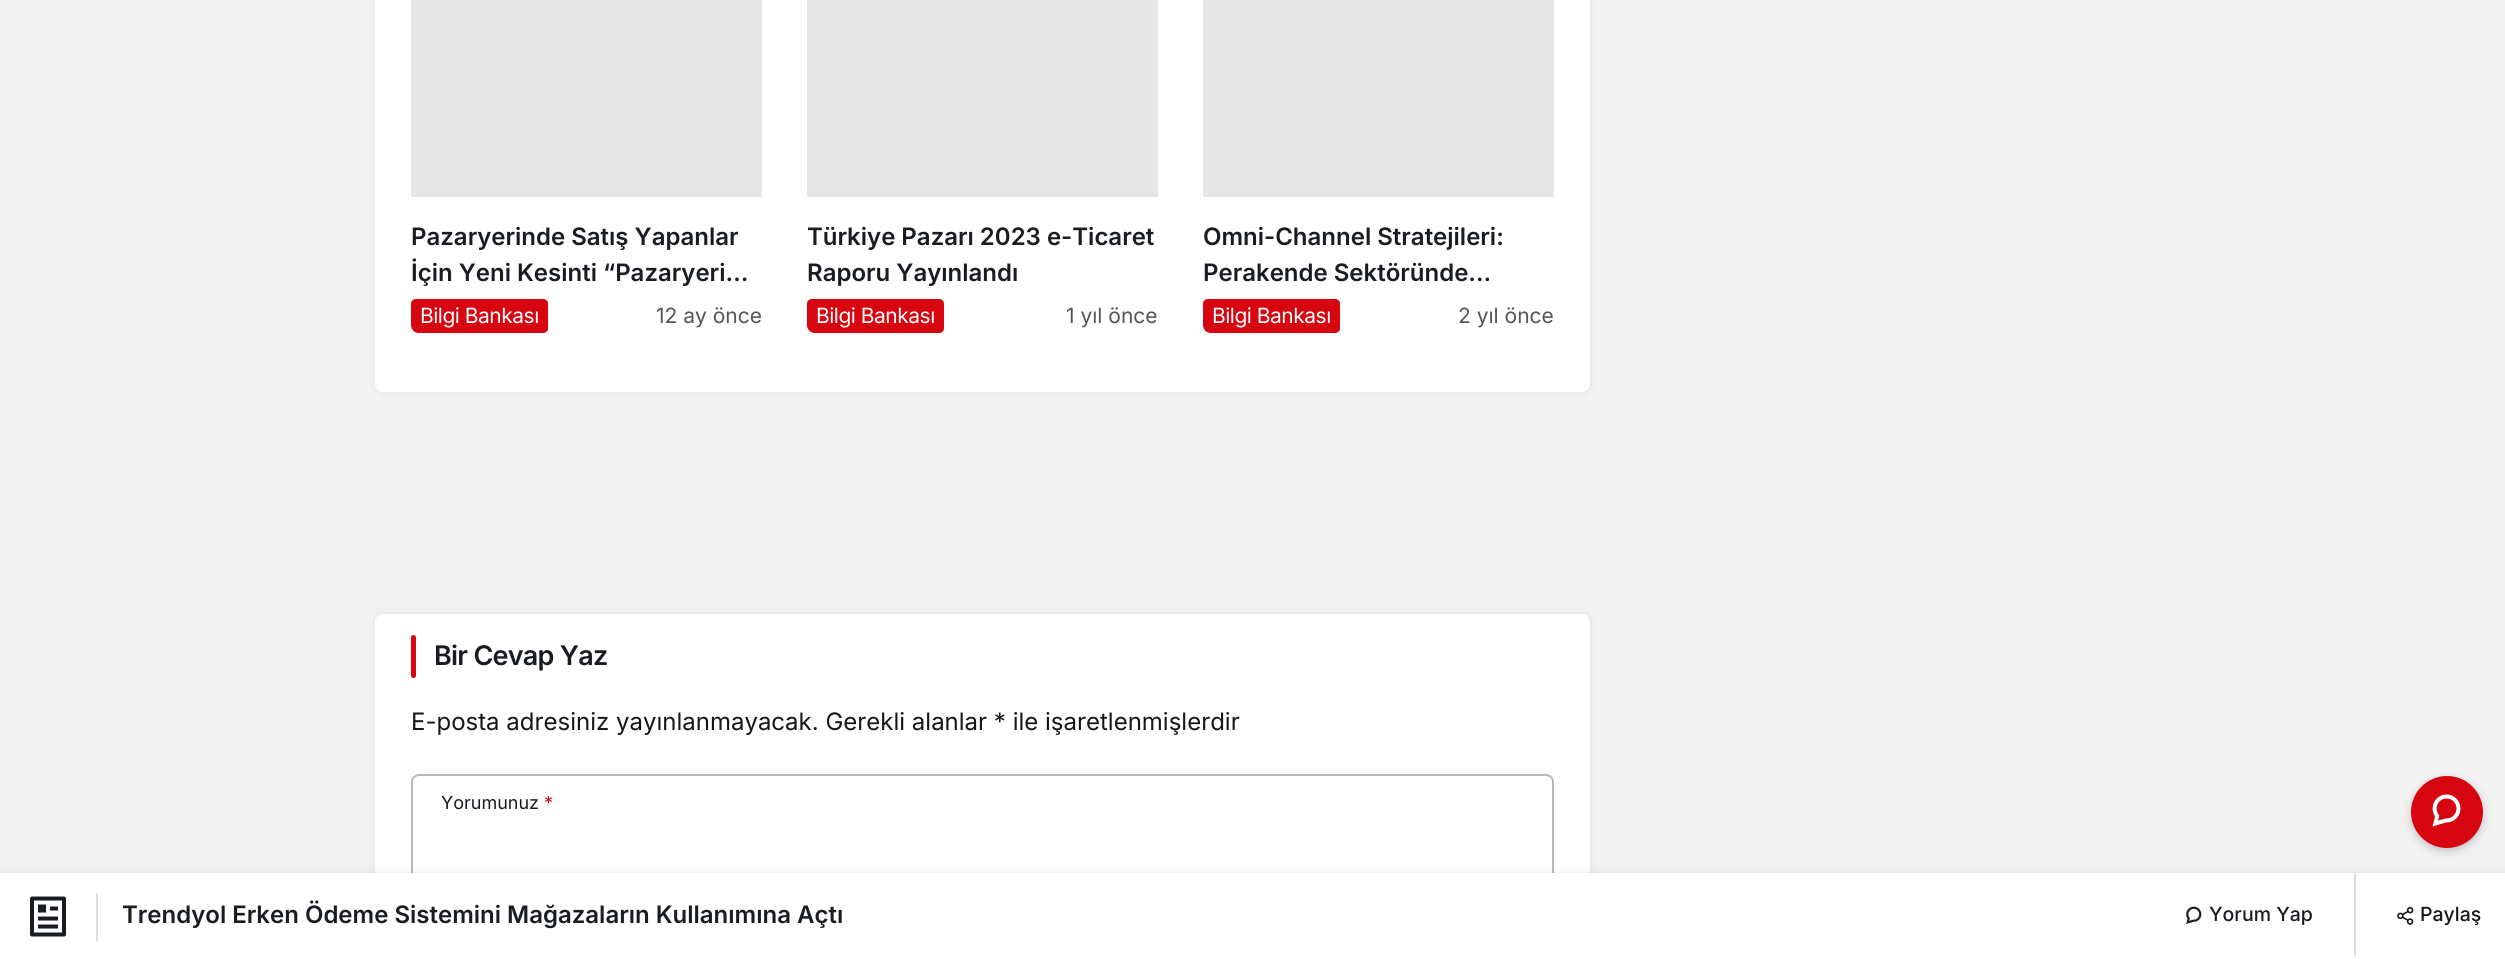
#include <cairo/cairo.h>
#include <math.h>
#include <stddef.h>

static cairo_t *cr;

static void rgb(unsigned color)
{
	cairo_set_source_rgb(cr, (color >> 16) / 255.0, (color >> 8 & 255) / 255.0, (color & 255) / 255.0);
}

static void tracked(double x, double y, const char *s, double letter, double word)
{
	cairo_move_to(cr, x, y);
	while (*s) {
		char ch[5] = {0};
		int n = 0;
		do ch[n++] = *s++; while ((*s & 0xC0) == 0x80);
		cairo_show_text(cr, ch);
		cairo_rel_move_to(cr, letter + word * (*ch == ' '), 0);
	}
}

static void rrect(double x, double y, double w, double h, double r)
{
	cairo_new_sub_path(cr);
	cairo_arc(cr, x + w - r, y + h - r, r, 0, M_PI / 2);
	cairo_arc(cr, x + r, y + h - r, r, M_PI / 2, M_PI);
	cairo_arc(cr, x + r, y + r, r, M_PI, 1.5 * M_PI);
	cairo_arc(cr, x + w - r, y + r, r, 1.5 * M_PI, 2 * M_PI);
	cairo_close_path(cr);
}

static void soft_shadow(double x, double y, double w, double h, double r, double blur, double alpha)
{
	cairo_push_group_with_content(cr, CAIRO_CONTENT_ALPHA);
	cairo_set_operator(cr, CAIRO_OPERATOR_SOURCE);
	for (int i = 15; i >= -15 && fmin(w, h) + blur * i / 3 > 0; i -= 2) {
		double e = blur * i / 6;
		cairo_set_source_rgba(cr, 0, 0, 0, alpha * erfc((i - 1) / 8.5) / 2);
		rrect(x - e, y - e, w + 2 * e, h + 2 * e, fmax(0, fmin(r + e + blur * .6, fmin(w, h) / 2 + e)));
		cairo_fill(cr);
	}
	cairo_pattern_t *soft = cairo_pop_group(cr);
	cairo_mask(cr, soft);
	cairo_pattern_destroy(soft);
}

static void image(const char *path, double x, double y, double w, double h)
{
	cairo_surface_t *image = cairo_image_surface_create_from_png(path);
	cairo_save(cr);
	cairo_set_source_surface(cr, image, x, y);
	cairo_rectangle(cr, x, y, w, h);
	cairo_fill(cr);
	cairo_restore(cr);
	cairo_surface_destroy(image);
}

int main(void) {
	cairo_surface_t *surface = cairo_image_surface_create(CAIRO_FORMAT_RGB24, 2505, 959);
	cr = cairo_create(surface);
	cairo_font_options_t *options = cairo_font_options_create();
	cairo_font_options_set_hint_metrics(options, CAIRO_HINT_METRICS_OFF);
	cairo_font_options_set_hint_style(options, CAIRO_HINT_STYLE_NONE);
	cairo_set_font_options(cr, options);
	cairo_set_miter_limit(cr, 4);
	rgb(0xf2f2f3);
	cairo_paint(cr);
	rgb(0x32353d);
	soft_shadow(375, -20, 1215, 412, 8, 4, 0.1);
	rgb(0xffffff);
	rrect(375, -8, 1215, 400, 8);
	cairo_fill(cr);
	rgb(0xe6e6e6);
	cairo_rectangle(cr, 411, 0, 351, 197);
	cairo_fill(cr);
	rgb(0xd7050f);
	cairo_new_path(cr);
	cairo_move_to(cr, 416, 299);
	cairo_line_to(cr, 543, 299);
	cairo_curve_to(cr, 546, 299, 548, 301, 548, 304);
	cairo_line_to(cr, 548, 328);
	cairo_curve_to(cr, 548, 331, 546, 333, 543, 333);
	cairo_line_to(cr, 419, 333);
	cairo_curve_to(cr, 414.5, 333, 411, 329.5, 411, 325);
	cairo_line_to(cr, 411, 304);
	cairo_curve_to(cr, 411, 301, 413, 299, 416, 299);
	cairo_close_path(cr);
	cairo_fill(cr);
	rgb(0xe6e6e6);
	cairo_rectangle(cr, 807, 0, 351, 197);
	cairo_fill(cr);
	rgb(0xd7050f);
	cairo_new_path(cr);
	cairo_move_to(cr, 812, 299);
	cairo_line_to(cr, 939, 299);
	cairo_curve_to(cr, 942, 299, 944, 301, 944, 304);
	cairo_line_to(cr, 944, 328);
	cairo_curve_to(cr, 944, 331, 942, 333, 939, 333);
	cairo_line_to(cr, 815, 333);
	cairo_curve_to(cr, 810.5, 333, 807, 329.5, 807, 325);
	cairo_line_to(cr, 807, 304);
	cairo_curve_to(cr, 807, 301, 809, 299, 812, 299);
	cairo_close_path(cr);
	cairo_fill(cr);
	rgb(0xe6e6e6);
	cairo_rectangle(cr, 1203, 0, 351, 197);
	cairo_fill(cr);
	rgb(0xd7050f);
	cairo_new_path(cr);
	cairo_move_to(cr, 1208, 299);
	cairo_line_to(cr, 1335, 299);
	cairo_curve_to(cr, 1338, 299, 1340, 301, 1340, 304);
	cairo_line_to(cr, 1340, 328);
	cairo_curve_to(cr, 1340, 331, 1338, 333, 1335, 333);
	cairo_line_to(cr, 1211, 333);
	cairo_curve_to(cr, 1206.5, 333, 1203, 329.5, 1203, 325);
	cairo_line_to(cr, 1203, 304);
	cairo_curve_to(cr, 1203, 301, 1205, 299, 1208, 299);
	cairo_close_path(cr);
	cairo_fill(cr);
	rgb(0x32353d);
	soft_shadow(375, 614, 1215, 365, 8, 4, 0.1);
	rgb(0xffffff);
	rrect(375, 614, 1215, 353, 8);
	cairo_fill(cr);
	rgb(0xd7050f);
	rrect(411, 635, 5, 43, 2.5);
	cairo_fill(cr);
	rrect(412, 775, 1141, 175, 7);
	rgb(0xb9b9b9);
	cairo_stroke(cr);
	rgb(0x000000);
	soft_shadow(2, 873, 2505, 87, 0, 4, 0.1);
	rgb(0xffffff);
	cairo_rectangle(cr, 0, 873, 2505, 86);
	cairo_fill(cr);
	image("img/1.png", 30, 896, 36, 41);
	rgb(0xdedfe2);
	cairo_rectangle(cr, 96, 893, 2, 48);
	cairo_fill(cr);
	image("img/2.png", 2186, 906, 16, 18);
	cairo_rectangle(cr, 2354, 873, 2, 83);
	cairo_fill(cr);
	image("img/3.png", 2397, 907, 17, 18);
	rgb(0x000000);
	soft_shadow(2411, 779, 72, 72, 36, 4.5, 0.2);
	rgb(0xd7050f);
	cairo_arc(cr, 2447, 812, 36, 0, 2 * M_PI);
	cairo_fill(cr);
	image("img/4.png", 2432, 794, 29, 33);
	cairo_select_font_face(cr, "Inter SemiBold", CAIRO_FONT_SLANT_NORMAL, CAIRO_FONT_WEIGHT_NORMAL);
	cairo_set_font_size(cr, 24);
	rgb(0x191c20);
	cairo_move_to(cr, 411, 245);
	cairo_show_text(cr, "Pazaryerinde Satış Yapanlar");
	cairo_move_to(cr, 411, 281);
	cairo_show_text(cr, "İçin Yeni Kesinti “Pazaryeri…");
	cairo_select_font_face(cr, "Inter", CAIRO_FONT_SLANT_NORMAL, CAIRO_FONT_WEIGHT_NORMAL);
	cairo_set_font_size(cr, 21);
	rgb(0xffffff);
	tracked(420, 323, "Bilgi Bankası", -0.5, 0);
	rgb(0x525659);
	cairo_move_to(cr, 656, 323);
	cairo_show_text(cr, "12 ay önce");
	cairo_select_font_face(cr, "Inter SemiBold", CAIRO_FONT_SLANT_NORMAL, CAIRO_FONT_WEIGHT_NORMAL);
	cairo_set_font_size(cr, 24);
	rgb(0x191c20);
	cairo_move_to(cr, 807, 245);
	cairo_show_text(cr, "Türkiye Pazarı 2023 e-Ticaret");
	cairo_move_to(cr, 807, 281);
	cairo_show_text(cr, "Raporu Yayınlandı");
	cairo_select_font_face(cr, "Inter", CAIRO_FONT_SLANT_NORMAL, CAIRO_FONT_WEIGHT_NORMAL);
	cairo_set_font_size(cr, 21);
	rgb(0xffffff);
	tracked(816, 323, "Bilgi Bankası", -0.5, 0);
	rgb(0x525659);
	cairo_move_to(cr, 1066, 323);
	cairo_show_text(cr, "1 yıl önce");
	cairo_select_font_face(cr, "Inter SemiBold", CAIRO_FONT_SLANT_NORMAL, CAIRO_FONT_WEIGHT_NORMAL);
	cairo_set_font_size(cr, 24);
	rgb(0x191c20);
	cairo_move_to(cr, 1203, 245);
	cairo_show_text(cr, "Omni-Channel Stratejileri:");
	cairo_move_to(cr, 1203, 281);
	cairo_show_text(cr, "Perakende Sektöründe…");
	cairo_select_font_face(cr, "Inter", CAIRO_FONT_SLANT_NORMAL, CAIRO_FONT_WEIGHT_NORMAL);
	cairo_set_font_size(cr, 21);
	rgb(0xffffff);
	tracked(1212, 323, "Bilgi Bankası", -0.5, 0);
	rgb(0x525659);
	cairo_move_to(cr, 1458, 323);
	cairo_show_text(cr, "2 yıl önce");
	cairo_select_font_face(cr, "Inter SemiBold", CAIRO_FONT_SLANT_NORMAL, CAIRO_FONT_WEIGHT_NORMAL);
	cairo_set_font_size(cr, 27);
	rgb(0x191c20);
	tracked(434, 665, "Bir Cevap Yaz", -0.75, 0);
	cairo_select_font_face(cr, "Inter", CAIRO_FONT_SLANT_NORMAL, CAIRO_FONT_WEIGHT_NORMAL);
	cairo_set_font_size(cr, 24);
	rgb(0x161616);
	cairo_move_to(cr, 411, 730);
	cairo_show_text(cr, "E-posta adresiniz yayınlanmayacak. Gerekli alanlar * ile işaretlenmişlerdir");
	cairo_set_font_size(cr, 18);
	rgb(0x191c20);
	cairo_move_to(cr, 441, 809);
	cairo_show_text(cr, "Yorumunuz");
	rgb(0xcf061c);
	cairo_move_to(cr, 544, 809);
	cairo_show_text(cr, "*");
	cairo_select_font_face(cr, "Inter SemiBold", CAIRO_FONT_SLANT_NORMAL, CAIRO_FONT_WEIGHT_NORMAL);
	cairo_set_font_size(cr, 24);
	rgb(0x191c20);
	cairo_move_to(cr, 122, 923);
	cairo_show_text(cr, "Trendyol Erken Ödeme Sistemini Mağazaların Kullanımına Açtı");
	cairo_select_font_face(cr, "Inter Medium", CAIRO_FONT_SLANT_NORMAL, CAIRO_FONT_WEIGHT_NORMAL);
	cairo_set_font_size(cr, 19.5);
	cairo_move_to(cr, 2209, 921);
	cairo_show_text(cr, "Yorum Yap");
	rgb(0x161616);
	cairo_move_to(cr, 2420, 921);
	cairo_show_text(cr, "Paylaş");
	cairo_surface_write_to_png(surface, "page.png");
	cairo_font_options_destroy(options);
	cairo_destroy(cr);
	cairo_surface_destroy(surface);
	return 0;
}
